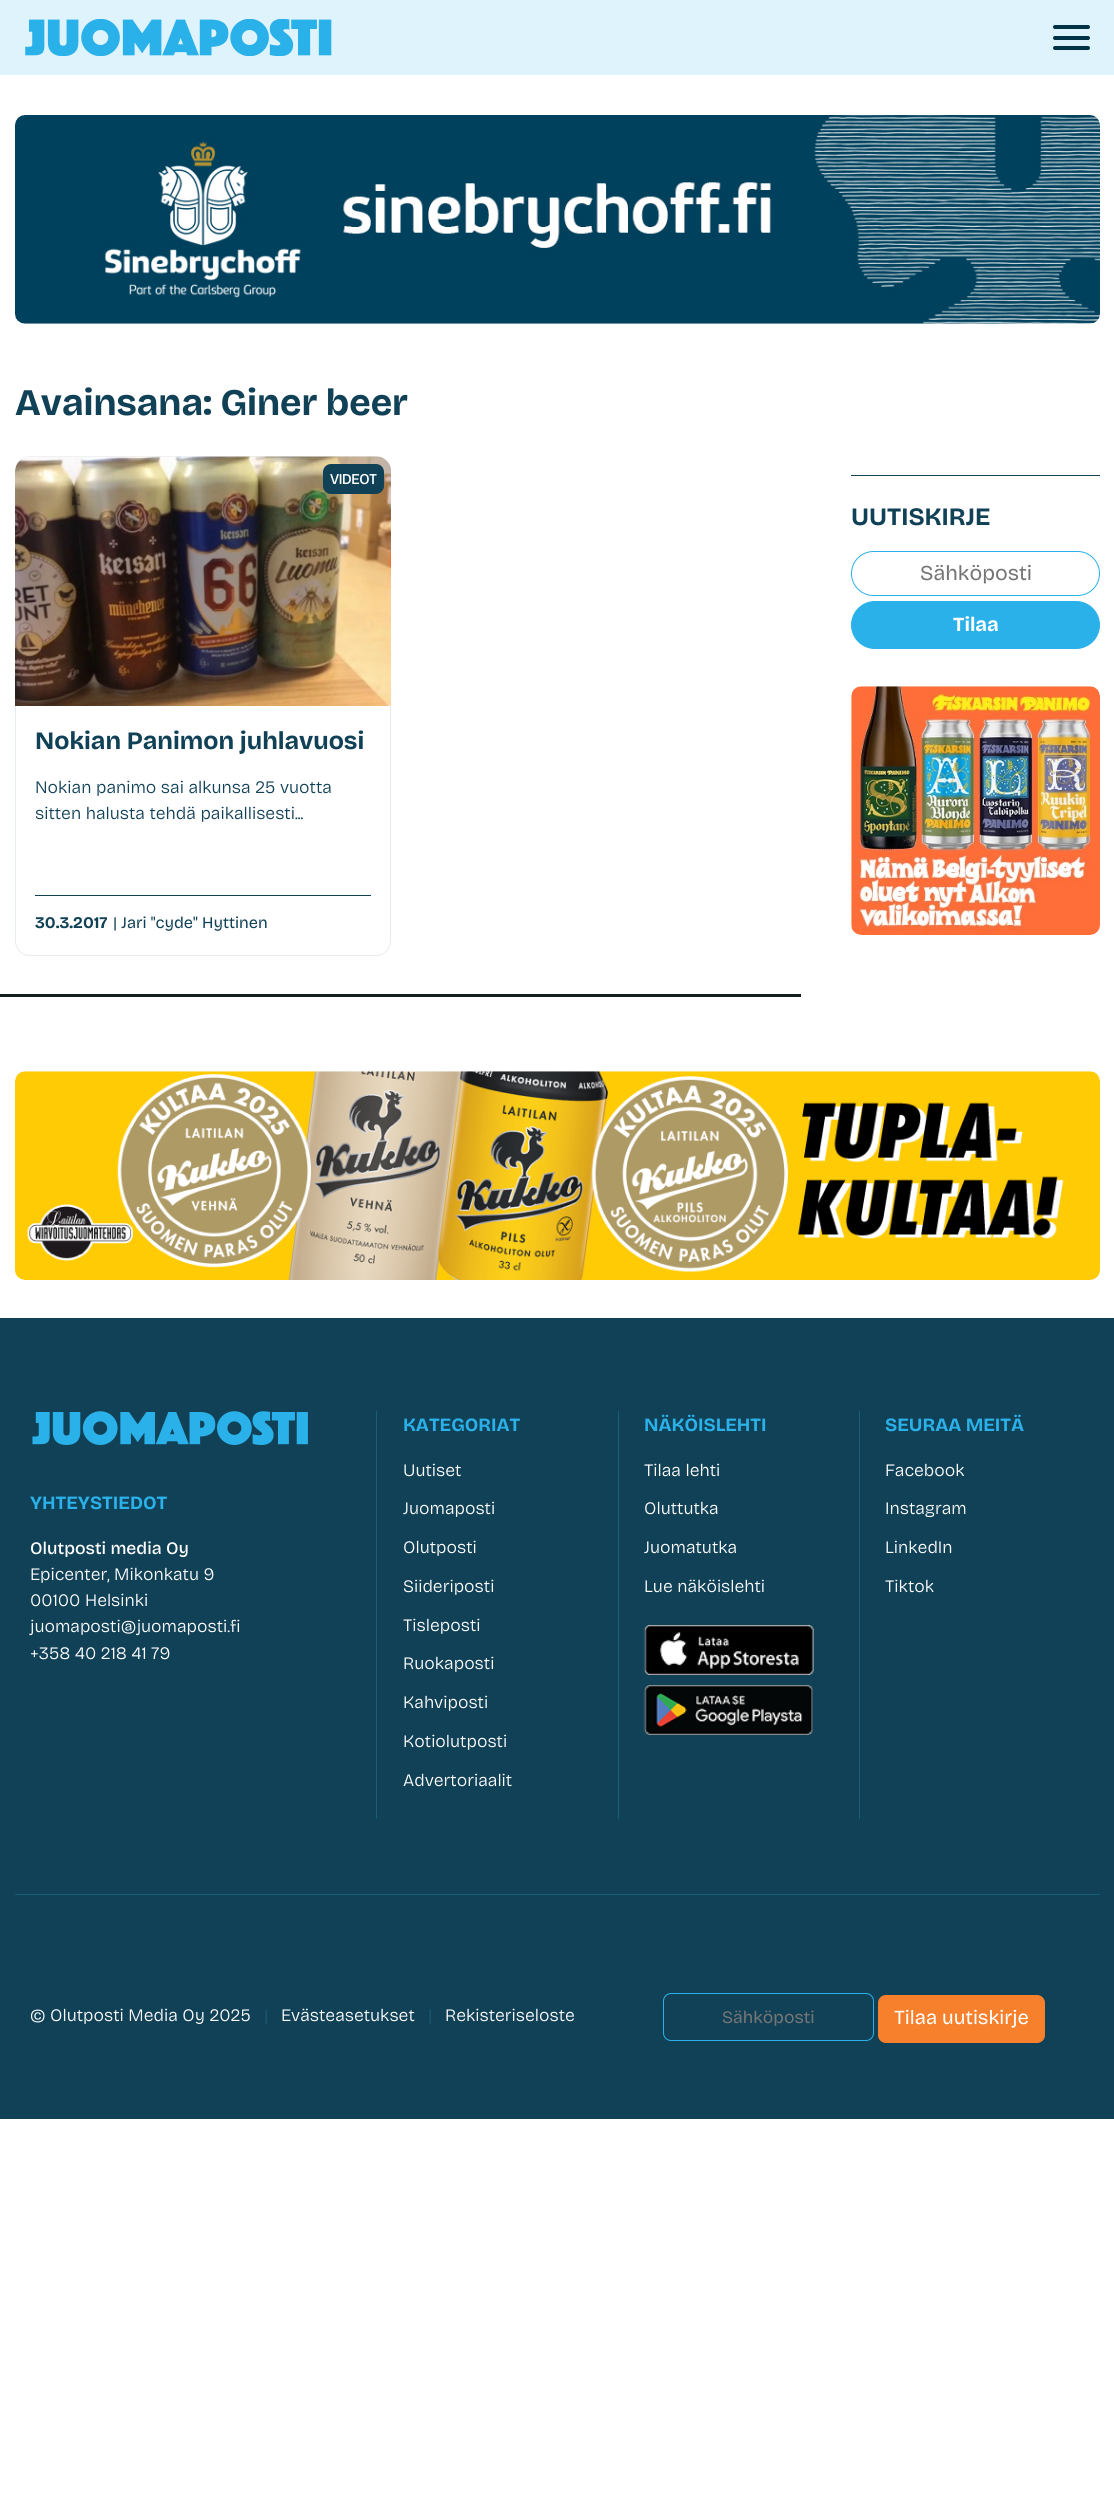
#include <cairo/cairo.h>
#include <math.h>
#include <stddef.h>

typedef struct { double x, y; const char *s; } line_t;
typedef struct { double x, y, w, h; unsigned color; } box_t;
static cairo_t *cr;

static void rgb(unsigned color)
{
	cairo_set_source_rgb(cr, (color >> 16) / 255.0, (color >> 8 & 255) / 255.0, (color & 255) / 255.0);
}

static void rrect(double x, double y, double w, double h, double r)
{
	cairo_new_sub_path(cr);
	cairo_arc(cr, x + w - r, y + h - r, r, 0, M_PI / 2);
	cairo_arc(cr, x + r, y + h - r, r, M_PI / 2, M_PI);
	cairo_arc(cr, x + r, y + r, r, M_PI, 1.5 * M_PI);
	cairo_arc(cr, x + w - r, y + r, r, 1.5 * M_PI, 2 * M_PI);
	cairo_close_path(cr);
}

static void image(const char *path, double x, double y, double w, double h)
{
	cairo_surface_t *image = cairo_image_surface_create_from_png(path);
	cairo_save(cr);
	cairo_set_source_surface(cr, image, x, y);
	cairo_rectangle(cr, x, y, w, h);
	cairo_fill(cr);
	cairo_restore(cr);
	cairo_surface_destroy(image);
}

int main(void) {
	cairo_surface_t *surface = cairo_image_surface_create(CAIRO_FORMAT_RGB24, 1114, 2516);
	cr = cairo_create(surface);
	cairo_font_options_t *options = cairo_font_options_create();
	cairo_font_options_set_hint_metrics(options, CAIRO_HINT_METRICS_OFF);
	cairo_font_options_set_hint_style(options, CAIRO_HINT_STYLE_NONE);
	cairo_set_font_options(cr, options);
	cairo_set_miter_limit(cr, 4);
	rgb(0xffffff);
	cairo_paint(cr);
	rgb(0xdff3fc);
	cairo_rectangle(cr, 0, 0, 1114, 75);
	cairo_fill(cr);
	image("img/1.png", 25, 19, 307, 37);
	rgb(0x003145);
	rrect(1053, 25, 37, 4, 2);
	cairo_fill(cr);
	rrect(1053, 36, 37, 4, 2);
	cairo_fill(cr);
	rrect(1053, 46, 37, 4, 2);
	cairo_fill(cr);
	image("img/2.png", 15, 115, 1085, 209);
	rrect(15.5, 456.5, 375, 499, 14.5);
	rgb(0xe7ecee);
	cairo_set_line_width(cr, 1);
	cairo_stroke(cr);
	image("img/3.png", 15, 456, 376, 250);
	rgb(0x114157);
	rrect(323, 464, 61, 30, 8);
	cairo_fill(cr);
	{
		static const box_t items[] = {
			{35, 895, 336, 1, 0x114157},
			{0, 994, 801, 3, 0x13201e},
			{851, 475, 249, 1, 0x114157},
		};
		for (size_t i = 0; i < sizeof items / sizeof *items; i++) {
			rgb(items[i].color);
			cairo_rectangle(cr, items[i].x, items[i].y, items[i].w, items[i].h);
			cairo_fill(cr);
		}
	}
	rrect(851.5, 551.5, 248, 44, 22);
	rgb(0x2bb1e9);
	cairo_stroke(cr);
	rrect(851.5, 601.5, 248, 47, 23.5);
	cairo_fill_preserve(cr);
	cairo_stroke(cr);
	image("img/4.png", 851, 686, 249, 249);
	image("img/5.png", 15, 1071, 1085, 209);
	rgb(0x114157);
	cairo_rectangle(cr, 0, 1318, 1114, 801);
	cairo_fill(cr);
	image("img/6.png", 32, 1411, 276, 34);
	rgb(0x185d7c);
	cairo_rectangle(cr, 376, 1411, 1, 408);
	cairo_fill(cr);
	cairo_rectangle(cr, 618, 1411, 1, 408);
	cairo_fill(cr);
	image("img/7.png", 643, 1625, 171, 50);
	image("img/8.png", 643, 1685, 170, 50);
	cairo_rectangle(cr, 859, 1411, 1, 408);
	cairo_fill(cr);
	cairo_rectangle(cr, 15, 1894, 1085, 1);
	cairo_fill(cr);
	rrect(663.5, 1993.5, 210, 47, 7.5);
	rgb(0x2bb1e9);
	cairo_stroke(cr);
	rgb(0xf7802c);
	rrect(878.5, 1995.5, 166, 47, 7.5);
	cairo_fill_preserve(cr);
	cairo_stroke(cr);
	cairo_select_font_face(cr, "Bricolage Grotesque", CAIRO_FONT_SLANT_NORMAL, CAIRO_FONT_WEIGHT_BOLD);
	cairo_set_font_size(cr, 37.5);
	rgb(0x114157);
	cairo_move_to(cr, 15, 415);
	cairo_show_text(cr, "Avainsana: Giner beer");
	cairo_select_font_face(cr, "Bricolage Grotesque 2 Medium", CAIRO_FONT_SLANT_NORMAL, CAIRO_FONT_WEIGHT_NORMAL);
	cairo_set_font_size(cr, 15);
	rgb(0xffffff);
	cairo_move_to(cr, 330, 484);
	cairo_show_text(cr, "VIDEOT");
	cairo_select_font_face(cr, "Bricolage Grotesque 2", CAIRO_FONT_SLANT_NORMAL, CAIRO_FONT_WEIGHT_BOLD);
	cairo_set_font_size(cr, 25);
	rgb(0x114157);
	cairo_move_to(cr, 35, 749);
	cairo_show_text(cr, "Nokian Panimon juhlavuosi");
	cairo_select_font_face(cr, "Bricolage Grotesque Light", CAIRO_FONT_SLANT_NORMAL, CAIRO_FONT_WEIGHT_NORMAL);
	cairo_set_font_size(cr, 17.5);
	cairo_move_to(cr, 35, 793);
	cairo_show_text(cr, "Nokian panimo sai alkunsa 25 vuotta");
	cairo_move_to(cr, 35, 819);
	cairo_show_text(cr, "sitten halusta tehdä paikallisesti...");
	cairo_select_font_face(cr, "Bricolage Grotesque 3", CAIRO_FONT_SLANT_NORMAL, CAIRO_FONT_WEIGHT_BOLD);
	cairo_set_font_size(cr, 16.25);
	cairo_move_to(cr, 35, 928);
	cairo_show_text(cr, "30.3.2017");
	cairo_select_font_face(cr, "Bricolage Grotesque", CAIRO_FONT_SLANT_NORMAL, CAIRO_FONT_WEIGHT_NORMAL);
	cairo_move_to(cr, 113, 928);
	cairo_show_text(cr, "| Jari \"cyde\" Hyttinen");
	cairo_select_font_face(cr, "Bricolage Grotesque 2", CAIRO_FONT_SLANT_NORMAL, CAIRO_FONT_WEIGHT_BOLD);
	cairo_set_font_size(cr, 25);
	cairo_move_to(cr, 851, 525);
	cairo_show_text(cr, "UUTISKIRJE");
	cairo_select_font_face(cr, "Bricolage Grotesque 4", CAIRO_FONT_SLANT_NORMAL, CAIRO_FONT_WEIGHT_NORMAL);
	cairo_set_font_size(cr, 21.25);
	rgb(0x757575);
	cairo_move_to(cr, 920, 580);
	cairo_show_text(cr, "Sähköposti");
	cairo_select_font_face(cr, "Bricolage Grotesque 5", CAIRO_FONT_SLANT_NORMAL, CAIRO_FONT_WEIGHT_BOLD);
	cairo_set_font_size(cr, 20);
	rgb(0xffffff);
	cairo_move_to(cr, 953, 631);
	cairo_show_text(cr, "Tilaa");
	cairo_select_font_face(cr, "Bricolage Grotesque 4", CAIRO_FONT_SLANT_NORMAL, CAIRO_FONT_WEIGHT_BOLD);
	cairo_set_font_size(cr, 18.75);
	rgb(0x2bb1e9);
	cairo_move_to(cr, 30, 1509);
	cairo_show_text(cr, "YHTEYSTIEDOT");
	cairo_select_font_face(cr, "Bricolage Grotesque Medium", CAIRO_FONT_SLANT_NORMAL, CAIRO_FONT_WEIGHT_NORMAL);
	cairo_set_font_size(cr, 17.5);
	rgb(0xffffff);
	cairo_move_to(cr, 30, 1554);
	cairo_show_text(cr, "Olutposti media Oy");
	cairo_select_font_face(cr, "Bricolage Grotesque Light", CAIRO_FONT_SLANT_NORMAL, CAIRO_FONT_WEIGHT_NORMAL);
	{
		static const line_t items[] = {
			{30, 1580, "Epicenter, Mikonkatu 9"},
			{30, 1606, "00100 Helsinki"},
			{30, 1632, "juomaposti@juomaposti.fi"},
			{30, 1659, "+358 40 218 41 79"},
		};
		for (size_t i = 0; i < sizeof items / sizeof *items; i++) {
			cairo_move_to(cr, items[i].x, items[i].y);
			cairo_show_text(cr, items[i].s);
		}
	}
	cairo_select_font_face(cr, "Bricolage Grotesque 4", CAIRO_FONT_SLANT_NORMAL, CAIRO_FONT_WEIGHT_BOLD);
	cairo_set_font_size(cr, 18.75);
	rgb(0x2bb1e9);
	cairo_move_to(cr, 403, 1431);
	cairo_show_text(cr, "KATEGORIAT");
	cairo_select_font_face(cr, "Bricolage Grotesque Light", CAIRO_FONT_SLANT_NORMAL, CAIRO_FONT_WEIGHT_NORMAL);
	cairo_set_font_size(cr, 17.5);
	rgb(0xffffff);
	{
		static const line_t items[] = {
			{403, 1476, "Uutiset"},
			{403, 1514, "Juomaposti"},
			{403, 1553, "Olutposti"},
			{403, 1592, "Siideriposti"},
			{403, 1631, "Tisleposti"},
			{403, 1669, "Ruokaposti"},
			{403, 1708, "Kahviposti"},
			{403, 1747, "Kotiolutposti"},
			{403, 1786, "Advertoriaalit"},
		};
		for (size_t i = 0; i < sizeof items / sizeof *items; i++) {
			cairo_move_to(cr, items[i].x, items[i].y);
			cairo_show_text(cr, items[i].s);
		}
	}
	cairo_select_font_face(cr, "Bricolage Grotesque 4", CAIRO_FONT_SLANT_NORMAL, CAIRO_FONT_WEIGHT_BOLD);
	cairo_set_font_size(cr, 18.75);
	rgb(0x2bb1e9);
	cairo_move_to(cr, 644, 1431);
	cairo_show_text(cr, "NÄKÖISLEHTI");
	cairo_select_font_face(cr, "Bricolage Grotesque Light", CAIRO_FONT_SLANT_NORMAL, CAIRO_FONT_WEIGHT_NORMAL);
	cairo_set_font_size(cr, 17.5);
	rgb(0xffffff);
	{
		static const line_t items[] = {
			{644, 1476, "Tilaa lehti"},
			{644, 1514, "Oluttutka"},
			{644, 1553, "Juomatutka"},
			{644, 1592, "Lue näköislehti"},
		};
		for (size_t i = 0; i < sizeof items / sizeof *items; i++) {
			cairo_move_to(cr, items[i].x, items[i].y);
			cairo_show_text(cr, items[i].s);
		}
	}
	cairo_select_font_face(cr, "Bricolage Grotesque 4", CAIRO_FONT_SLANT_NORMAL, CAIRO_FONT_WEIGHT_BOLD);
	cairo_set_font_size(cr, 18.75);
	rgb(0x2bb1e9);
	cairo_move_to(cr, 885, 1431);
	cairo_show_text(cr, "SEURAA MEITÄ");
	cairo_select_font_face(cr, "Bricolage Grotesque Light", CAIRO_FONT_SLANT_NORMAL, CAIRO_FONT_WEIGHT_NORMAL);
	cairo_set_font_size(cr, 17.5);
	rgb(0xffffff);
	{
		static const line_t items[] = {
			{885, 1476, "Facebook"},
			{885, 1514, "Instagram"},
			{885, 1553, "LinkedIn"},
			{885, 1592, "Tiktok"},
			{30, 2021, "© Olutposti Media Oy 2025"},
		};
		for (size_t i = 0; i < sizeof items / sizeof *items; i++) {
			cairo_move_to(cr, items[i].x, items[i].y);
			cairo_show_text(cr, items[i].s);
		}
	}
	rgb(0x185d7c);
	cairo_move_to(cr, 264, 2021);
	cairo_show_text(cr, "|");
	rgb(0xffffff);
	cairo_move_to(cr, 281, 2021);
	cairo_show_text(cr, "Evästeasetukset");
	rgb(0x185d7c);
	cairo_move_to(cr, 428, 2021);
	cairo_show_text(cr, "|");
	rgb(0xffffff);
	cairo_move_to(cr, 445, 2021);
	cairo_show_text(cr, "Rekisteriseloste");
	cairo_select_font_face(cr, "Bricolage Grotesque 2", CAIRO_FONT_SLANT_NORMAL, CAIRO_FONT_WEIGHT_NORMAL);
	rgb(0x757575);
	cairo_move_to(cr, 722, 2023);
	cairo_show_text(cr, "Sähköposti");
	cairo_select_font_face(cr, "Bricolage Grotesque 3", CAIRO_FONT_SLANT_NORMAL, CAIRO_FONT_WEIGHT_NORMAL);
	cairo_set_font_size(cr, 20);
	rgb(0xffffff);
	cairo_move_to(cr, 894, 2024);
	cairo_show_text(cr, "Tilaa uutiskirje");
	cairo_surface_write_to_png(surface, "page.png");
	cairo_font_options_destroy(options);
	cairo_destroy(cr);
	cairo_surface_destroy(surface);
	return 0;
}
